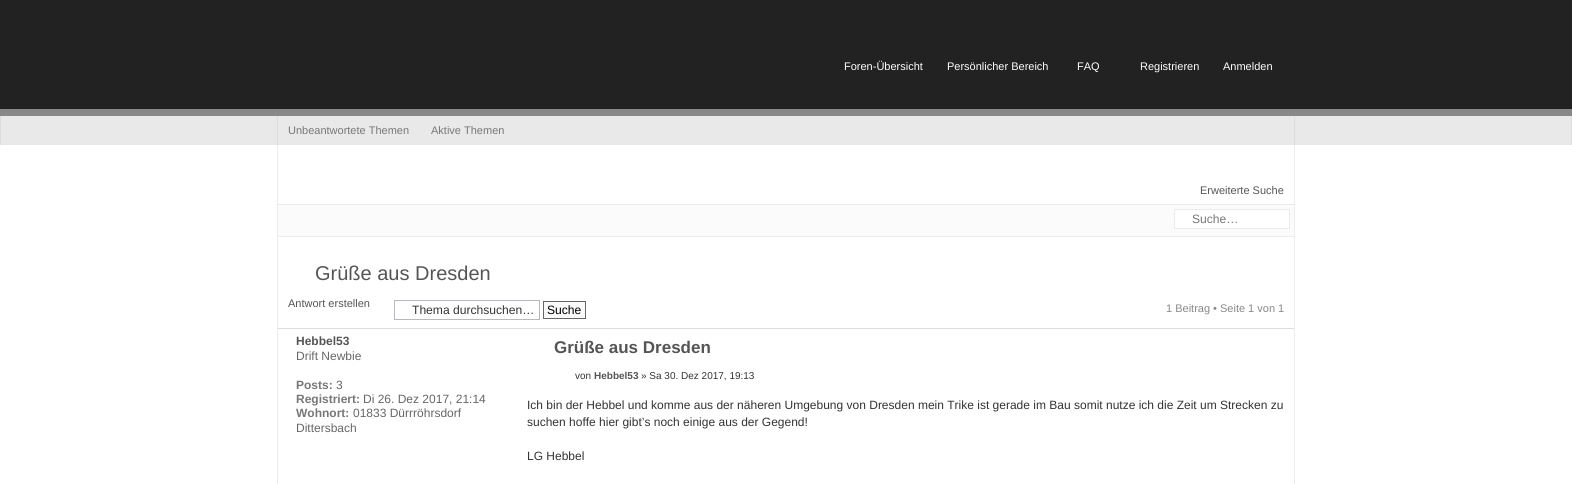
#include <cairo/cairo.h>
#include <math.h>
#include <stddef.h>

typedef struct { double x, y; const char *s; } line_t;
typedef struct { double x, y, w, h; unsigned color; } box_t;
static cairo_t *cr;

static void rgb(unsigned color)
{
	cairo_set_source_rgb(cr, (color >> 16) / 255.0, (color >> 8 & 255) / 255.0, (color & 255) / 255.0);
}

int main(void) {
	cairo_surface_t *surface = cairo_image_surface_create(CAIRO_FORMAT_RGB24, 1572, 484);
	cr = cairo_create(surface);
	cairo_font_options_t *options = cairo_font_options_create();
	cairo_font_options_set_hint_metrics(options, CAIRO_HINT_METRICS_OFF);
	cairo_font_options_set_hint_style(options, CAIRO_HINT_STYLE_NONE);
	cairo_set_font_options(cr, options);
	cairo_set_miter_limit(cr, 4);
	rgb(0xffffff);
	cairo_paint(cr);
	{
		static const box_t items[] = {
			{0, 0, 1572, 109, 0x222222},
			{0, 109, 1572, 7, 0x888888},
			{1, 116, 1570, 29, 0xe9e9e9},
			{1571, 116, 1, 29, 0xdddddd},
			{0, 116, 1, 29, 0xdddddd},
			{1294, 116, 1, 29, 0xdddddd},
			{277, 116, 1, 29, 0xdddddd},
			{1294, 145, 1, 339, 0xededed},
			{277, 145, 1, 339, 0xededed},
			{278, 205, 1016, 31, 0xfbfbfb},
			{278, 204, 1016, 1, 0xebebeb},
			{278, 236, 1016, 1, 0xebebeb},
		};
		for (size_t i = 0; i < sizeof items / sizeof *items; i++) {
			rgb(items[i].color);
			cairo_rectangle(cr, items[i].x, items[i].y, items[i].w, items[i].h);
			cairo_fill(cr);
		}
	}
	rgb(0xffffff);
	cairo_rectangle(cr, 1174.5, 209.5, 115, 19);
	cairo_fill_preserve(cr);
	rgb(0xebebeb);
	cairo_set_line_width(cr, 1);
	cairo_stroke(cr);
	cairo_rectangle(cr, 394.5, 300.5, 145, 19);
	rgb(0xb4bac0);
	cairo_stroke(cr);
	rgb(0xfafafa);
	cairo_rectangle(cr, 543.5, 301.5, 42, 17);
	cairo_fill_preserve(cr);
	rgb(0x666666);
	cairo_stroke(cr);
	rgb(0xdddddd);
	cairo_rectangle(cr, 278, 328, 1016, 1);
	cairo_fill(cr);
	cairo_select_font_face(cr, "Liberation Sans", CAIRO_FONT_SLANT_NORMAL, CAIRO_FONT_WEIGHT_NORMAL);
	cairo_set_font_size(cr, 11);
	rgb(0xffffff);
	{
		static const line_t items[] = {
			{844, 70, "Foren-Übersicht"},
			{947, 70, "Persönlicher Bereich"},
			{1077, 70, "FAQ"},
			{1140, 70, "Registrieren"},
			{1223, 70, "Anmelden"},
		};
		for (size_t i = 0; i < sizeof items / sizeof *items; i++) {
			cairo_move_to(cr, items[i].x, items[i].y);
			cairo_show_text(cr, items[i].s);
		}
	}
	rgb(0x777777);
	cairo_move_to(cr, 288, 134);
	cairo_show_text(cr, "Unbeantwortete Themen");
	cairo_move_to(cr, 431, 134);
	cairo_show_text(cr, "Aktive Themen");
	rgb(0x555555);
	cairo_move_to(cr, 1200, 194);
	cairo_show_text(cr, "Erweiterte Suche");
	cairo_set_font_size(cr, 12.1);
	rgb(0x777777);
	cairo_move_to(cr, 1192, 223);
	cairo_show_text(cr, "Suche…");
	cairo_set_font_size(cr, 20);
	rgb(0x555555);
	cairo_move_to(cr, 315, 280);
	cairo_show_text(cr, "Grüße aus Dresden");
	cairo_set_font_size(cr, 11);
	cairo_move_to(cr, 288, 307);
	cairo_show_text(cr, "Antwort erstellen");
	cairo_set_font_size(cr, 12.1);
	rgb(0x333333);
	cairo_move_to(cr, 412, 314);
	cairo_show_text(cr, "Thema durchsuchen…");
	rgb(0x000000);
	cairo_move_to(cr, 547, 314);
	cairo_show_text(cr, "Suche");
	cairo_set_font_size(cr, 11);
	rgb(0x888888);
	cairo_move_to(cr, 1166, 312);
	cairo_show_text(cr, "1 Beitrag • Seite 1 von 1");
	cairo_select_font_face(cr, "Liberation Sans", CAIRO_FONT_SLANT_NORMAL, CAIRO_FONT_WEIGHT_BOLD);
	cairo_set_font_size(cr, 12);
	rgb(0x555555);
	cairo_move_to(cr, 296, 345);
	cairo_show_text(cr, "Hebbel53");
	cairo_select_font_face(cr, "Liberation Sans", CAIRO_FONT_SLANT_NORMAL, CAIRO_FONT_WEIGHT_NORMAL);
	rgb(0x666666);
	cairo_move_to(cr, 296, 360);
	cairo_show_text(cr, "Drift Newbie");
	cairo_select_font_face(cr, "Liberation Sans", CAIRO_FONT_SLANT_NORMAL, CAIRO_FONT_WEIGHT_BOLD);
	rgb(0x777777);
	cairo_move_to(cr, 296, 389);
	cairo_show_text(cr, "Posts:");
	cairo_select_font_face(cr, "Liberation Sans", CAIRO_FONT_SLANT_NORMAL, CAIRO_FONT_WEIGHT_NORMAL);
	rgb(0x666666);
	cairo_move_to(cr, 336, 389);
	cairo_show_text(cr, "3");
	cairo_select_font_face(cr, "Liberation Sans", CAIRO_FONT_SLANT_NORMAL, CAIRO_FONT_WEIGHT_BOLD);
	rgb(0x777777);
	cairo_move_to(cr, 296, 403);
	cairo_show_text(cr, "Registriert:");
	cairo_select_font_face(cr, "Liberation Sans", CAIRO_FONT_SLANT_NORMAL, CAIRO_FONT_WEIGHT_NORMAL);
	rgb(0x666666);
	cairo_move_to(cr, 363, 403);
	cairo_show_text(cr, "Di 26. Dez 2017, 21:14");
	cairo_select_font_face(cr, "Liberation Sans", CAIRO_FONT_SLANT_NORMAL, CAIRO_FONT_WEIGHT_BOLD);
	rgb(0x777777);
	cairo_move_to(cr, 296, 417);
	cairo_show_text(cr, "Wohnort:");
	cairo_select_font_face(cr, "Liberation Sans", CAIRO_FONT_SLANT_NORMAL, CAIRO_FONT_WEIGHT_NORMAL);
	rgb(0x666666);
	cairo_move_to(cr, 353, 417);
	cairo_show_text(cr, "01833 Dürrröhrsdorf");
	cairo_move_to(cr, 296, 432);
	cairo_show_text(cr, "Dittersbach");
	cairo_select_font_face(cr, "Liberation Sans", CAIRO_FONT_SLANT_NORMAL, CAIRO_FONT_WEIGHT_BOLD);
	cairo_set_font_size(cr, 17);
	rgb(0x555555);
	cairo_move_to(cr, 554, 353);
	cairo_show_text(cr, "Grüße aus Dresden");
	cairo_select_font_face(cr, "Liberation Sans", CAIRO_FONT_SLANT_NORMAL, CAIRO_FONT_WEIGHT_NORMAL);
	cairo_set_font_size(cr, 10);
	rgb(0x333333);
	cairo_move_to(cr, 575, 379);
	cairo_show_text(cr, "von");
	cairo_select_font_face(cr, "Liberation Sans", CAIRO_FONT_SLANT_NORMAL, CAIRO_FONT_WEIGHT_BOLD);
	rgb(0x555555);
	cairo_move_to(cr, 594, 379);
	cairo_show_text(cr, "Hebbel53");
	cairo_select_font_face(cr, "Liberation Sans", CAIRO_FONT_SLANT_NORMAL, CAIRO_FONT_WEIGHT_NORMAL);
	rgb(0x333333);
	cairo_move_to(cr, 641, 379);
	cairo_show_text(cr, "» Sa 30. Dez 2017, 19:13");
	cairo_set_font_size(cr, 12);
	{
		static const line_t items[] = {
			{527, 409, "Ich bin der Hebbel und komme aus der näheren Umgebung von Dresden mein Trike ist gerade im Bau somit nutze ich die Zeit um Strecken zu"},
			{527, 426, "suchen hoffe hier gibt’s noch einige aus der Gegend!"},
			{527, 460, "LG Hebbel"},
		};
		for (size_t i = 0; i < sizeof items / sizeof *items; i++) {
			cairo_move_to(cr, items[i].x, items[i].y);
			cairo_show_text(cr, items[i].s);
		}
	}
	cairo_surface_write_to_png(surface, "page.png");
	cairo_font_options_destroy(options);
	cairo_destroy(cr);
	cairo_surface_destroy(surface);
	return 0;
}
